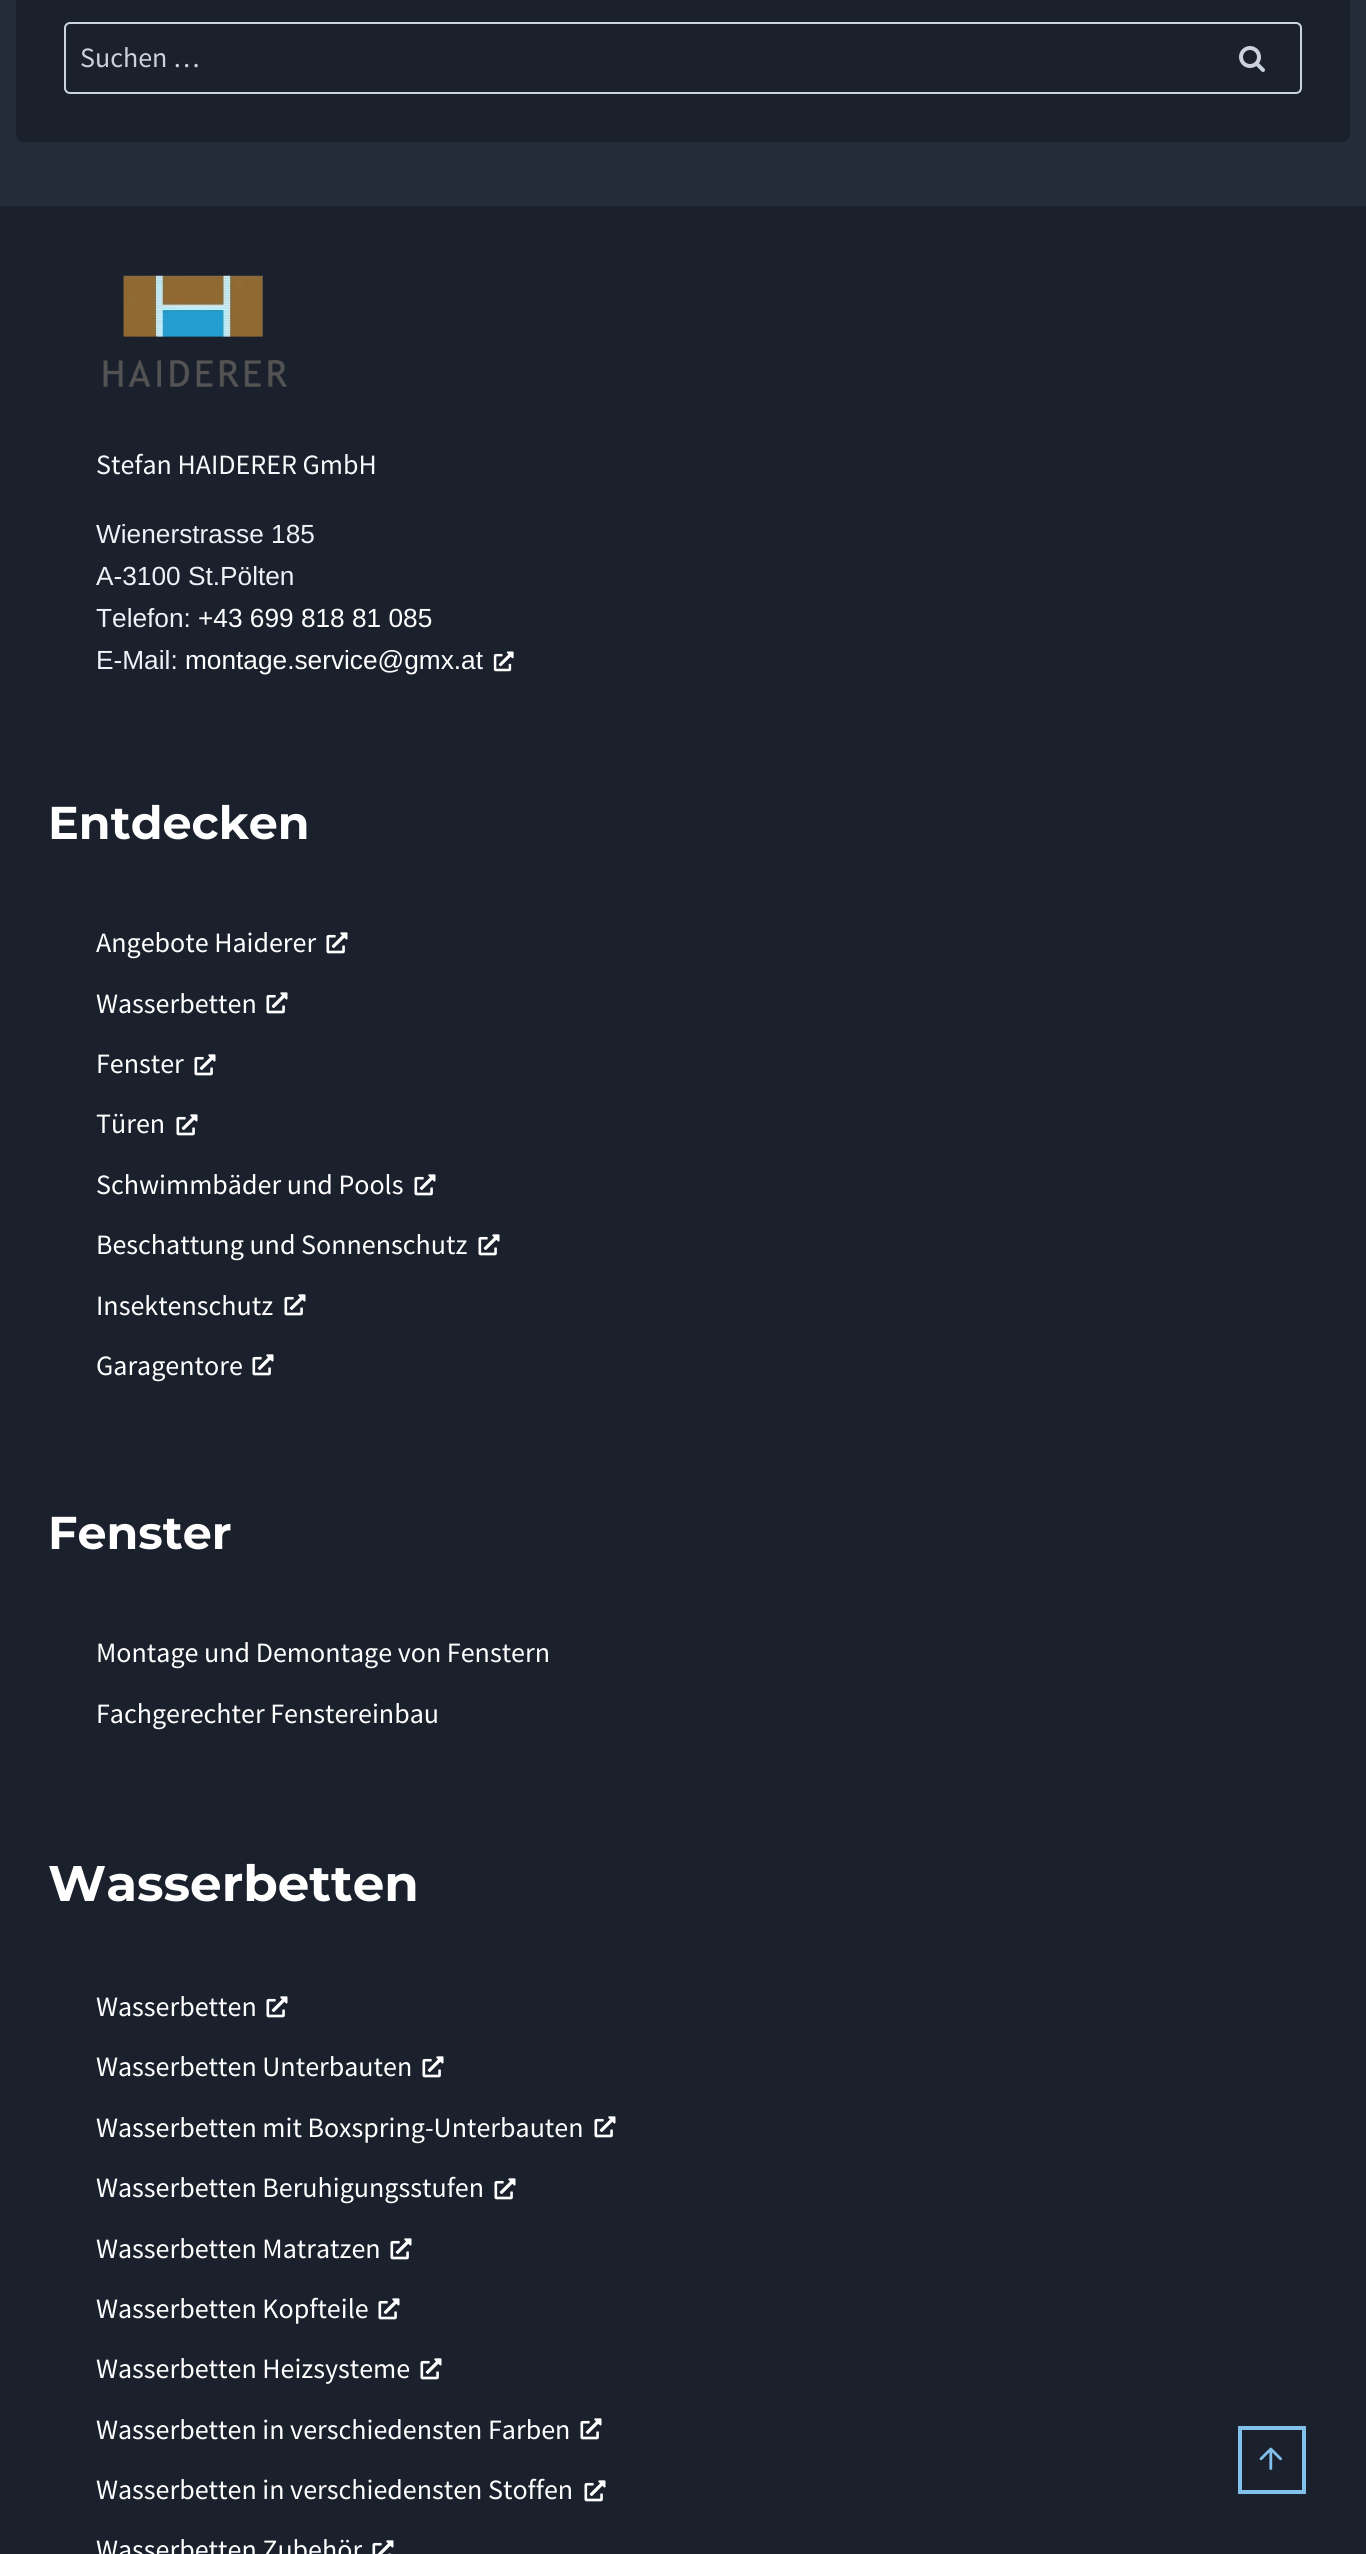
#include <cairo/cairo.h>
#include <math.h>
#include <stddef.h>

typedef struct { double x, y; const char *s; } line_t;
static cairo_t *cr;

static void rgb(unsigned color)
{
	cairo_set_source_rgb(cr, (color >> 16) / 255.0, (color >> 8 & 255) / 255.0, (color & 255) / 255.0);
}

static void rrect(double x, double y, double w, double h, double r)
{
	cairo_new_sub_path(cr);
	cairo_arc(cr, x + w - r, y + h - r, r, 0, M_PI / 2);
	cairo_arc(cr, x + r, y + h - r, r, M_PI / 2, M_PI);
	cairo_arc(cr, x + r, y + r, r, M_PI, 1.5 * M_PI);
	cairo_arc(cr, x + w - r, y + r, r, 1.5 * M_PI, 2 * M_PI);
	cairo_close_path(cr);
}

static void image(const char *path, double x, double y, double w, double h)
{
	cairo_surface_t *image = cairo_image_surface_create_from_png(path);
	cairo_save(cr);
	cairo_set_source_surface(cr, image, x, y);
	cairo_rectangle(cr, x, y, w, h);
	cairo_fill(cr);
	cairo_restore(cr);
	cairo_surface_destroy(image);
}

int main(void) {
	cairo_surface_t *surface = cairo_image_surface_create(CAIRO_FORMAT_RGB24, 1366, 2554);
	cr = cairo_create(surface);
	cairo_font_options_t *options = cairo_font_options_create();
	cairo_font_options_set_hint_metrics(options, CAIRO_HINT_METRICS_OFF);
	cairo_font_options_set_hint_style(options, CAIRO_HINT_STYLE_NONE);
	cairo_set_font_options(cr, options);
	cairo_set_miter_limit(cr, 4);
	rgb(0x252c39);
	cairo_paint(cr);
	rgb(0x1a202c);
	rrect(16, -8, 1334, 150, 8);
	cairo_fill(cr);
	rrect(65, 23, 1236, 70, 5);
	rgb(0xcbd5e0);
	cairo_stroke(cr);
	image("img/1.png", 1239, 46, 26, 26);
	rgb(0x1a202c);
	cairo_rectangle(cr, 0, 206, 1366, 2348);
	cairo_fill(cr);
	image("img/2.png", 103, 275, 184, 112);
	image("img/3.png", 493, 651, 21, 21);
	image("img/4.png", 326, 932, 22, 22);
	image("img/4.png", 266, 992, 22, 22);
	image("img/4.png", 194, 1054, 22, 22);
	image("img/4.png", 176, 1114, 22, 22);
	image("img/4.png", 414, 1174, 22, 22);
	image("img/4.png", 478, 1234, 22, 22);
	image("img/4.png", 284, 1294, 22, 22);
	image("img/4.png", 252, 1354, 22, 22);
	image("img/4.png", 266, 1996, 22, 22);
	image("img/4.png", 422, 2056, 22, 22);
	image("img/4.png", 594, 2116, 22, 22);
	image("img/4.png", 494, 2178, 22, 22);
	image("img/4.png", 390, 2238, 22, 22);
	image("img/4.png", 378, 2298, 22, 22);
	image("img/4.png", 420, 2358, 22, 22);
	image("img/4.png", 580, 2418, 22, 22);
	image("img/4.png", 584, 2480, 22, 22);
	image("img/5.png", 372, 2540, 22, 14);
	cairo_rectangle(cr, 1240, 2428, 64, 64);
	rgb(0x81c0ea);
	cairo_set_line_width(cr, 4);
	cairo_stroke(cr);
	image("img/6.png", 1259, 2447, 23, 23);
	cairo_select_font_face(cr, "Source Sans Pro", CAIRO_FONT_SLANT_NORMAL, CAIRO_FONT_WEIGHT_NORMAL);
	cairo_set_font_size(cr, 28);
	rgb(0xcbd2d9);
	cairo_move_to(cr, 80, 67);
	cairo_show_text(cr, "Suchen …");
	rgb(0xf7fafc);
	cairo_move_to(cr, 96, 474);
	cairo_show_text(cr, "Stefan HAIDERER GmbH");
	cairo_select_font_face(cr, "Liberation Sans", CAIRO_FONT_SLANT_NORMAL, CAIRO_FONT_WEIGHT_NORMAL);
	cairo_set_font_size(cr, 26.25);
	rgb(0xedf2f7);
	{
		static const line_t items[] = {
			{96, 543, "Wienerstrasse 185"},
			{96, 585, "A-3100 St.Pölten"},
			{96, 627, "Telefon:"},
		};
		for (size_t i = 0; i < sizeof items / sizeof *items; i++) {
			cairo_move_to(cr, items[i].x, items[i].y);
			cairo_show_text(cr, items[i].s);
		}
	}
	rgb(0xffffff);
	cairo_move_to(cr, 198, 627);
	cairo_show_text(cr, "+43 699 818 81 085");
	rgb(0xedf2f7);
	cairo_move_to(cr, 96, 669);
	cairo_show_text(cr, "E-Mail:");
	rgb(0xffffff);
	cairo_move_to(cr, 185, 669);
	cairo_show_text(cr, "montage.service@gmx.at");
	cairo_select_font_face(cr, "Montserrat", CAIRO_FONT_SLANT_NORMAL, CAIRO_FONT_WEIGHT_BOLD);
	cairo_set_font_size(cr, 46);
	cairo_move_to(cr, 48, 839);
	cairo_show_text(cr, "Entdecken");
	cairo_select_font_face(cr, "Source Sans Pro", CAIRO_FONT_SLANT_NORMAL, CAIRO_FONT_WEIGHT_NORMAL);
	cairo_set_font_size(cr, 28);
	{
		static const line_t items[] = {
			{96, 952, "Angebote Haiderer"},
			{96, 1013, "Wasserbetten"},
			{96, 1073, "Fenster"},
			{96, 1133, "Türen"},
			{96, 1194, "Schwimmbäder und Pools"},
			{96, 1254, "Beschattung und Sonnenschutz"},
			{96, 1315, "Insektenschutz"},
			{96, 1375, "Garagentore"},
		};
		for (size_t i = 0; i < sizeof items / sizeof *items; i++) {
			cairo_move_to(cr, items[i].x, items[i].y);
			cairo_show_text(cr, items[i].s);
		}
	}
	cairo_select_font_face(cr, "Montserrat", CAIRO_FONT_SLANT_NORMAL, CAIRO_FONT_WEIGHT_BOLD);
	cairo_set_font_size(cr, 46);
	cairo_move_to(cr, 48, 1549);
	cairo_show_text(cr, "Fenster");
	cairo_select_font_face(cr, "Source Sans Pro", CAIRO_FONT_SLANT_NORMAL, CAIRO_FONT_WEIGHT_NORMAL);
	cairo_set_font_size(cr, 28);
	cairo_move_to(cr, 96, 1662);
	cairo_show_text(cr, "Montage und Demontage von Fenstern");
	cairo_move_to(cr, 96, 1723);
	cairo_show_text(cr, "Fachgerechter Fenstereinbau");
	cairo_select_font_face(cr, "Montserrat", CAIRO_FONT_SLANT_NORMAL, CAIRO_FONT_WEIGHT_BOLD);
	cairo_set_font_size(cr, 50);
	cairo_move_to(cr, 48, 1901);
	cairo_show_text(cr, "Wasserbetten");
	cairo_select_font_face(cr, "Source Sans Pro", CAIRO_FONT_SLANT_NORMAL, CAIRO_FONT_WEIGHT_NORMAL);
	cairo_set_font_size(cr, 28);
	{
		static const line_t items[] = {
			{96, 2016, "Wasserbetten"},
			{96, 2076, "Wasserbetten Unterbauten"},
			{96, 2137, "Wasserbetten mit Boxspring-Unterbauten"},
			{96, 2197, "Wasserbetten Beruhigungsstufen"},
			{96, 2258, "Wasserbetten Matratzen"},
			{96, 2318, "Wasserbetten Kopfteile"},
			{96, 2378, "Wasserbetten Heizsysteme"},
			{96, 2439, "Wasserbetten in verschiedensten Farben"},
			{96, 2499, "Wasserbetten in verschiedensten Stoffen"},
			{96, 2559, "Wasserbetten Zubehör"},
		};
		for (size_t i = 0; i < sizeof items / sizeof *items; i++) {
			cairo_move_to(cr, items[i].x, items[i].y);
			cairo_show_text(cr, items[i].s);
		}
	}
	cairo_surface_write_to_png(surface, "page.png");
	cairo_font_options_destroy(options);
	cairo_destroy(cr);
	cairo_surface_destroy(surface);
	return 0;
}
